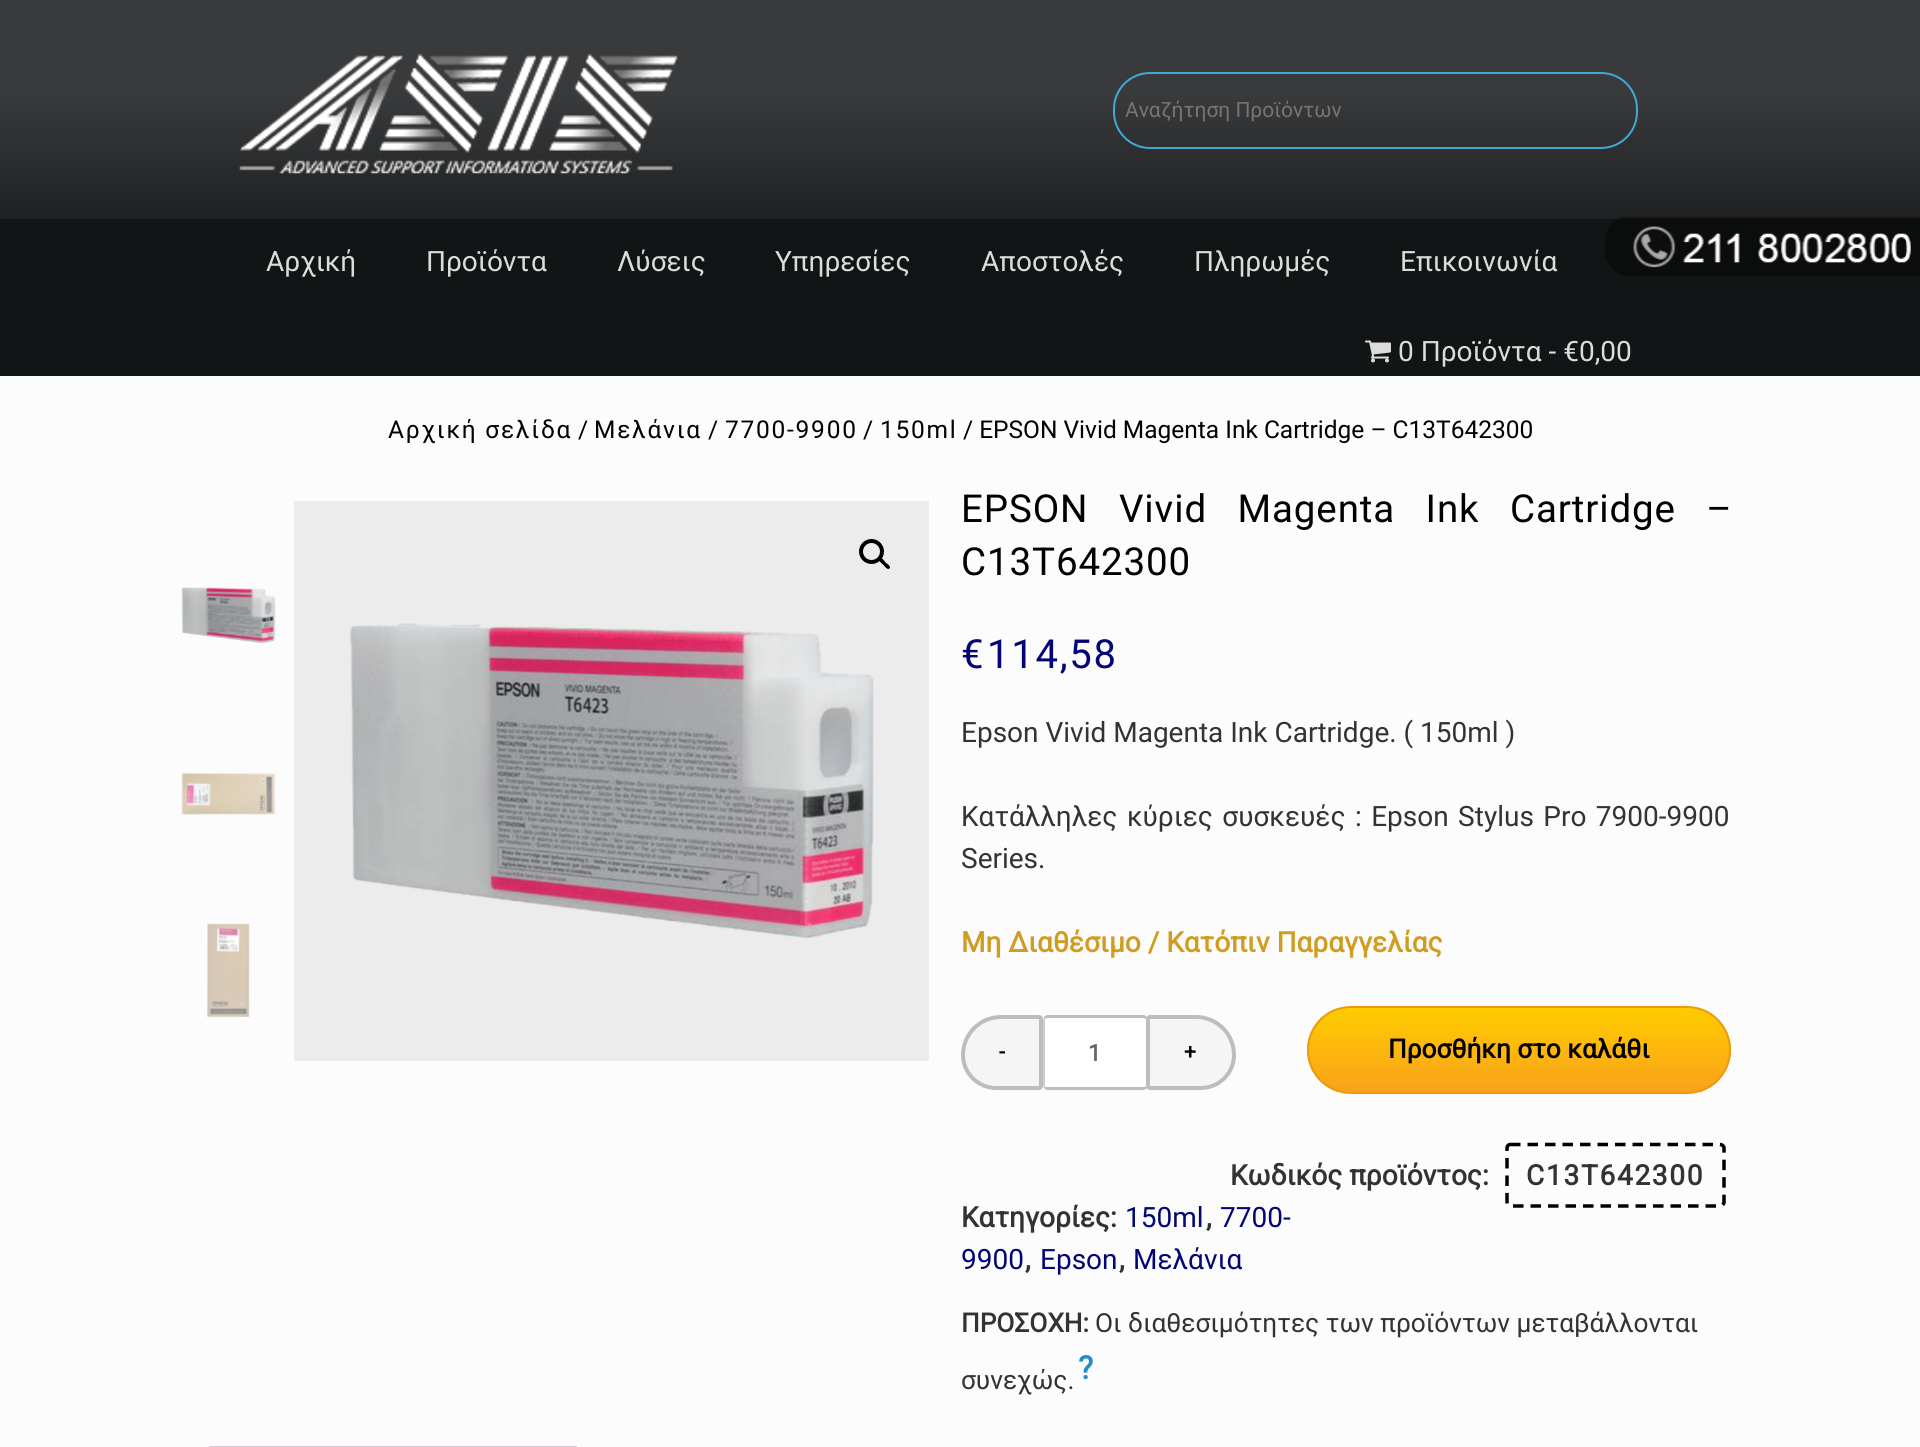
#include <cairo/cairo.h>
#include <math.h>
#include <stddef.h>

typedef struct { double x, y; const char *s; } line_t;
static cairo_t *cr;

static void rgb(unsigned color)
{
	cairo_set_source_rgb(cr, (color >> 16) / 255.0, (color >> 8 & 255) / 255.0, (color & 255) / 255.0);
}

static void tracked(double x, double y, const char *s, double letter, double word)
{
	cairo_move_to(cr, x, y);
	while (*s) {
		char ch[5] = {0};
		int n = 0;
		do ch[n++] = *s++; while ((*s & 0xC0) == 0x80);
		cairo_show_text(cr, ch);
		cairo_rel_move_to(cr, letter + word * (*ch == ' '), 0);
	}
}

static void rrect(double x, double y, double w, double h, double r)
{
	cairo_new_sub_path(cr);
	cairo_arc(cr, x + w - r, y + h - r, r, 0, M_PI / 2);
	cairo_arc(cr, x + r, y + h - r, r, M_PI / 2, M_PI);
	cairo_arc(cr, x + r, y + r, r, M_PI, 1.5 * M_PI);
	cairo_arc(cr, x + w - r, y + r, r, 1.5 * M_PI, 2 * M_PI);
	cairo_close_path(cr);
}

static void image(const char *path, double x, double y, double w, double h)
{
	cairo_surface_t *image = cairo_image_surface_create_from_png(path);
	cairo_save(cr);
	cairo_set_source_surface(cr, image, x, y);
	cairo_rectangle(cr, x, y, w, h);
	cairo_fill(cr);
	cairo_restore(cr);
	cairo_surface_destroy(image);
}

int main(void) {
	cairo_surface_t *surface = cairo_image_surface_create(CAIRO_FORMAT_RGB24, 1920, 1447);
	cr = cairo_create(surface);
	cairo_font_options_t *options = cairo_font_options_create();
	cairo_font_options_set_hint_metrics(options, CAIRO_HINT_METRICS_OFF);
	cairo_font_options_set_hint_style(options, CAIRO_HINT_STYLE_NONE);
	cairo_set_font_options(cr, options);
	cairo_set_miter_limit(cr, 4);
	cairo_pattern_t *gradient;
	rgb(0xffffff);
	cairo_paint(cr);
	gradient = cairo_pattern_create_linear(961, 0, 961, 376);
	cairo_pattern_add_color_stop_rgba(gradient, 0.25, 0.22, 0.227, 0.235, 1);
	cairo_pattern_add_color_stop_rgba(gradient, 1, 0, 0, 0, 1);
	cairo_set_source(cr, gradient);
	cairo_pattern_destroy(gradient);
	cairo_rectangle(cr, 0, 0, 1920, 219);
	cairo_fill(cr);
	image("img/1.png", 239, 54, 439, 120);
	rrect(1114, 73, 523, 75, 36);
	rgb(0x41a9d5);
	cairo_stroke(cr);
	rgb(0x121516);
	cairo_rectangle(cr, 0, 219, 1920, 157);
	cairo_fill(cr);
	image("img/2.png", 1605, 217, 315, 60);
	image("img/3.png", 1365, 340, 26, 23);
	rgb(0xfcfcfc);
	cairo_rectangle(cr, 0, 376, 1920, 1071);
	cairo_fill(cr);
	rgb(0xececec);
	cairo_rectangle(cr, 294, 501, 635, 560);
	cairo_fill(cr);
	image("img/4.png", 349, 623, 525, 315);
	cairo_arc(cr, 871.5, 551.5, 10.5, 0, 2 * M_PI);
	rgb(0x000000);
	cairo_set_line_width(cr, 4);
	cairo_stroke(cr);
	cairo_new_path(cr);
	cairo_move_to(cr, 879.5, 558.5);
	cairo_curve_to(cr, 881.5, 556.5, 884.5, 561, 885.5, 562.5);
	cairo_curve_to(cr, 887, 563.5, 891.5, 566.5, 889.5, 568.5);
	cairo_curve_to(cr, 887.5, 570.5, 884.5, 566, 883, 564.5);
	cairo_curve_to(cr, 882, 563.5, 877.5, 560.5, 879.5, 558.5);
	cairo_close_path(cr);
	cairo_fill(cr);
	image("img/5.png", 181, 587, 95, 56);
	image("img/6.png", 181, 772, 95, 43);
	image("img/7.png", 207, 923, 43, 94);
	rgb(0xf5f5f5);
	cairo_new_path(cr);
	cairo_move_to(cr, 1001, 1017);
	cairo_line_to(cr, 1039, 1017);
	cairo_curve_to(cr, 1040, 1017, 1041, 1018, 1041, 1019);
	cairo_line_to(cr, 1041, 1086);
	cairo_curve_to(cr, 1041, 1087, 1040, 1088, 1039, 1088);
	cairo_line_to(cr, 996, 1088);
	cairo_curve_to(cr, 978, 1088, 963, 1073, 963, 1055);
	cairo_curve_to(cr, 963, 1034, 980, 1017, 1001, 1017);
	cairo_close_path(cr);
	cairo_fill_preserve(cr);
	rgb(0xbdbdbd);
	cairo_stroke(cr);
	rgb(0xffffff);
	cairo_new_path(cr);
	cairo_move_to(cr, 1048, 1018);
	cairo_line_to(cr, 1143, 1018);
	cairo_curve_to(cr, 1145, 1018, 1146, 1019, 1146, 1020);
	cairo_line_to(cr, 1146, 1085);
	cairo_curve_to(cr, 1146, 1086, 1145, 1087, 1143, 1087);
	cairo_line_to(cr, 1048, 1087);
	cairo_curve_to(cr, 1046, 1087, 1045, 1086, 1045, 1085);
	cairo_line_to(cr, 1045, 1020);
	cairo_curve_to(cr, 1045, 1019, 1046, 1018, 1048, 1018);
	cairo_close_path(cr);
	cairo_fill(cr);
	rgb(0xbdbdbd);
	cairo_new_path(cr);
	cairo_move_to(cr, 1048, 1015);
	cairo_curve_to(cr, 1046, 1015, 1045, 1016, 1044, 1017);
	cairo_line_to(cr, 1045, 1019);
	cairo_curve_to(cr, 1046, 1018, 1047, 1018, 1048, 1018);
	cairo_line_to(cr, 1144, 1018);
	cairo_line_to(cr, 1146, 1019);
	cairo_line_to(cr, 1147, 1017);
	cairo_curve_to(cr, 1146, 1016, 1145, 1015, 1143, 1015);
	cairo_close_path(cr);
	cairo_fill(cr);
	cairo_new_path(cr);
	cairo_move_to(cr, 1147, 1088);
	cairo_curve_to(cr, 1146, 1089, 1145, 1090, 1143, 1090);
	cairo_line_to(cr, 1048, 1090);
	cairo_curve_to(cr, 1046, 1090, 1045, 1089, 1044, 1088);
	cairo_line_to(cr, 1045, 1086);
	cairo_line_to(cr, 1046, 1087);
	cairo_line_to(cr, 1143, 1087);
	cairo_curve_to(cr, 1144, 1087, 1145, 1087, 1146, 1086);
	cairo_close_path(cr);
	cairo_fill(cr);
	rgb(0xcccccc);
	cairo_new_path(cr);
	cairo_move_to(cr, 1043, 1020);
	cairo_line_to(cr, 1043, 1085);
	cairo_curve_to(cr, 1043, 1086, 1043, 1087, 1044, 1088);
	cairo_line_to(cr, 1045, 1086);
	cairo_line_to(cr, 1045, 1019);
	cairo_line_to(cr, 1044, 1017);
	cairo_close_path(cr);
	cairo_fill(cr);
	rgb(0xf5f5f5);
	cairo_new_path(cr);
	cairo_move_to(cr, 1150, 1017);
	cairo_line_to(cr, 1196, 1017);
	cairo_curve_to(cr, 1217, 1017, 1234, 1034, 1234, 1055);
	cairo_curve_to(cr, 1234, 1073, 1219, 1088, 1201, 1088);
	cairo_line_to(cr, 1150, 1088);
	cairo_curve_to(cr, 1149, 1088, 1148, 1087, 1148, 1086);
	cairo_line_to(cr, 1148, 1019);
	cairo_curve_to(cr, 1148, 1018, 1149, 1017, 1150, 1017);
	cairo_close_path(cr);
	cairo_fill_preserve(cr);
	rgb(0xbdbdbd);
	cairo_stroke(cr);
	cairo_save(cr);
	rrect(1307, 1006, 424, 88, 44);
	cairo_clip(cr);
	gradient = cairo_pattern_create_linear(1519, 1092, 1519, 1008);
	cairo_pattern_add_color_stop_rgba(gradient, 0, 0.98, 0.635, 0.106, 1);
	cairo_pattern_add_color_stop_rgba(gradient, 1, 1, 0.8, 0, 1);
	cairo_set_source(cr, gradient);
	cairo_pattern_destroy(gradient);
	cairo_rectangle(cr, 1307, 1008, 424, 84);
	cairo_fill(cr);
	cairo_restore(cr);
	rrect(1308, 1007, 422, 86, 43);
	rgb(0xec9a10);
	cairo_set_line_width(cr, 2);
	cairo_stroke(cr);
	cairo_new_path(cr);
	cairo_move_to(cr, 1510, 1144.5);
	cairo_line_to(cr, 1720, 1144.5);
	cairo_curve_to(cr, 1722, 1144.5, 1724, 1146, 1724, 1148);
	cairo_line_to(cr, 1724, 1202);
	cairo_curve_to(cr, 1724, 1204, 1722, 1206, 1720, 1206);
	cairo_line_to(cr, 1510, 1206);
	cairo_curve_to(cr, 1508.5, 1206, 1507, 1204, 1507, 1202);
	cairo_line_to(cr, 1507, 1148);
	cairo_curve_to(cr, 1507, 1146, 1508.5, 1144.5, 1510, 1144.5);
	cairo_close_path(cr);
	rgb(0x000000);
	cairo_set_line_width(cr, 3.5);
	cairo_set_dash(cr, (double[]){10.5, 7}, 2, 0);
	cairo_stroke(cr);
	cairo_new_path(cr);
	cairo_move_to(cr, 364, 1447);
	cairo_line_to(cr, 574, 1447);
	cairo_curve_to(cr, 577.5, 1447, 580, 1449.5, 580, 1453);
	cairo_line_to(cr, 580, 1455);
	cairo_line_to(cr, 358, 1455);
	cairo_line_to(cr, 358, 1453);
	cairo_curve_to(cr, 358, 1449.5, 360.5, 1447, 364, 1447);
	cairo_close_path(cr);
	rgb(0xcfc8d8);
	cairo_set_line_width(cr, 2);
	cairo_set_dash(cr, NULL, 0, 0);
	cairo_stroke(cr);
	cairo_new_path(cr);
	cairo_move_to(cr, 212, 1446);
	cairo_curve_to(cr, 210, 1446, 208, 1447, 207, 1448);
	cairo_line_to(cr, 208, 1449);
	cairo_line_to(cr, 211, 1447);
	cairo_line_to(cr, 363, 1447);
	cairo_line_to(cr, 366, 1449);
	cairo_line_to(cr, 367, 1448);
	cairo_curve_to(cr, 366, 1447, 364, 1446, 362, 1446);
	cairo_close_path(cr);
	cairo_fill(cr);
	cairo_select_font_face(cr, "Roboto", CAIRO_FONT_SLANT_NORMAL, CAIRO_FONT_WEIGHT_NORMAL);
	cairo_set_font_size(cr, 21);
	rgb(0x757575);
	cairo_move_to(cr, 1125, 117);
	cairo_show_text(cr, "Αναζήτηση Προϊόντων");
	cairo_set_font_size(cr, 28);
	rgb(0xdcdcdc);
	{
		static const line_t items[] = {
			{266, 271, "Αρχική"},
			{426, 271, "Προϊόντα"},
			{617, 271, "Λύσεις"},
			{775, 271, "Υπηρεσίες"},
			{981, 271, "Αποστολές"},
			{1194, 271, "Πληρωμές"},
			{1400, 271, "Επικοινωνία"},
			{1398, 361, "0 Προϊόντα - €0,00"},
		};
		for (size_t i = 0; i < sizeof items / sizeof *items; i++) {
			cairo_move_to(cr, items[i].x, items[i].y);
			cairo_show_text(cr, items[i].s);
		}
	}
	cairo_set_font_size(cr, 24.5);
	rgb(0x020003);
	tracked(388, 438, "Αρχική σελίδα", 1.75, 0);
	cairo_move_to(cr, 578, 438);
	cairo_show_text(cr, "/");
	tracked(594, 438, "Μελάνια", 1.75, 0);
	cairo_move_to(cr, 708, 438);
	cairo_show_text(cr, "/");
	tracked(725, 438, "7700-9900", 1.75, 0);
	cairo_move_to(cr, 863, 438);
	cairo_show_text(cr, "/");
	tracked(880, 438, "150ml", 1.75, 0);
	cairo_move_to(cr, 963, 438);
	cairo_show_text(cr, "/ EPSON Vivid Magenta Ink Cartridge – C13T642300");
	cairo_set_font_size(cr, 38.5);
	tracked(961, 522, "EPSON Vivid Magenta Ink Cartridge –", 0.9, 20);
	tracked(961, 575, "C13T642300", 0.9, 0);
	cairo_set_font_size(cr, 40);
	rgb(0x030576);
	tracked(961, 668, "€", 1.75, 0);
	tracked(987, 668, "114,58", 1.75, 0);
	cairo_set_font_size(cr, 28);
	rgb(0x333333);
	cairo_move_to(cr, 961, 742);
	cairo_show_text(cr, "Epson Vivid Magenta Ink Cartridge. ( 150ml )");
	tracked(961, 826, "Κατάλληλες κύριες συσκευές : Epson Stylus Pro 7900-9900", 0, 2.5);
	cairo_move_to(cr, 961, 868);
	cairo_show_text(cr, "Series.");
	cairo_select_font_face(cr, "Roboto", CAIRO_FONT_SLANT_NORMAL, CAIRO_FONT_WEIGHT_BOLD);
	rgb(0xd09d23);
	cairo_move_to(cr, 961, 952);
	cairo_show_text(cr, "Μη Διαθέσιμο / Κατόπιν Παραγγελίας");
	cairo_set_font_size(cr, 21);
	rgb(0x020003);
	cairo_move_to(cr, 999, 1059);
	cairo_show_text(cr, "-");
	cairo_set_font_size(cr, 23);
	rgb(0x666666);
	cairo_move_to(cr, 1088, 1061);
	cairo_show_text(cr, "1");
	cairo_set_font_size(cr, 21);
	rgb(0x020003);
	cairo_move_to(cr, 1184, 1059);
	cairo_show_text(cr, "+");
	cairo_set_font_size(cr, 26.25);
	cairo_move_to(cr, 1388, 1058);
	cairo_show_text(cr, "Προσθήκη στο καλάθι");
	cairo_set_font_size(cr, 28);
	rgb(0x333333);
	cairo_move_to(cr, 1230, 1185);
	cairo_show_text(cr, "Κωδικός προϊόντος:");
	tracked(1526, 1185, "C13T642300", 1.75, 0);
	cairo_move_to(cr, 961, 1227);
	cairo_show_text(cr, "Κατηγορίες:");
	cairo_select_font_face(cr, "Roboto", CAIRO_FONT_SLANT_NORMAL, CAIRO_FONT_WEIGHT_NORMAL);
	rgb(0x030576);
	cairo_move_to(cr, 1125, 1227);
	cairo_show_text(cr, "150ml");
	cairo_select_font_face(cr, "Roboto", CAIRO_FONT_SLANT_NORMAL, CAIRO_FONT_WEIGHT_BOLD);
	rgb(0x333333);
	cairo_move_to(cr, 1206, 1227);
	cairo_show_text(cr, ",");
	cairo_select_font_face(cr, "Roboto", CAIRO_FONT_SLANT_NORMAL, CAIRO_FONT_WEIGHT_NORMAL);
	rgb(0x030576);
	cairo_move_to(cr, 1220, 1227);
	cairo_show_text(cr, "7700-");
	cairo_move_to(cr, 961, 1269);
	cairo_show_text(cr, "9900");
	cairo_select_font_face(cr, "Roboto", CAIRO_FONT_SLANT_NORMAL, CAIRO_FONT_WEIGHT_BOLD);
	rgb(0x333333);
	cairo_move_to(cr, 1025, 1269);
	cairo_show_text(cr, ",");
	cairo_select_font_face(cr, "Roboto", CAIRO_FONT_SLANT_NORMAL, CAIRO_FONT_WEIGHT_NORMAL);
	rgb(0x030576);
	cairo_move_to(cr, 1040, 1269);
	cairo_show_text(cr, "Epson");
	cairo_select_font_face(cr, "Roboto", CAIRO_FONT_SLANT_NORMAL, CAIRO_FONT_WEIGHT_BOLD);
	rgb(0x333333);
	cairo_move_to(cr, 1119, 1269);
	cairo_show_text(cr, ",");
	cairo_select_font_face(cr, "Roboto", CAIRO_FONT_SLANT_NORMAL, CAIRO_FONT_WEIGHT_NORMAL);
	rgb(0x030576);
	cairo_move_to(cr, 1133, 1269);
	cairo_show_text(cr, "Μελάνια");
	cairo_select_font_face(cr, "Roboto", CAIRO_FONT_SLANT_NORMAL, CAIRO_FONT_WEIGHT_BOLD);
	cairo_set_font_size(cr, 26.25);
	rgb(0x333333);
	cairo_move_to(cr, 961, 1332);
	cairo_show_text(cr, "ΠΡΟΣΟΧΗ:");
	cairo_select_font_face(cr, "Roboto", CAIRO_FONT_SLANT_NORMAL, CAIRO_FONT_WEIGHT_NORMAL);
	cairo_move_to(cr, 1095, 1332);
	cairo_show_text(cr, "Οι διαθεσιμότητες των προϊόντων μεταβάλλονται");
	cairo_move_to(cr, 961, 1389);
	cairo_show_text(cr, "συνεχώς.");
	cairo_select_font_face(cr, "Roboto", CAIRO_FONT_SLANT_NORMAL, CAIRO_FONT_WEIGHT_BOLD);
	cairo_set_font_size(cr, 32);
	rgb(0x248cc8);
	cairo_move_to(cr, 1078, 1379);
	cairo_show_text(cr, "?");
	cairo_surface_write_to_png(surface, "page.png");
	cairo_font_options_destroy(options);
	cairo_destroy(cr);
	cairo_surface_destroy(surface);
	return 0;
}
